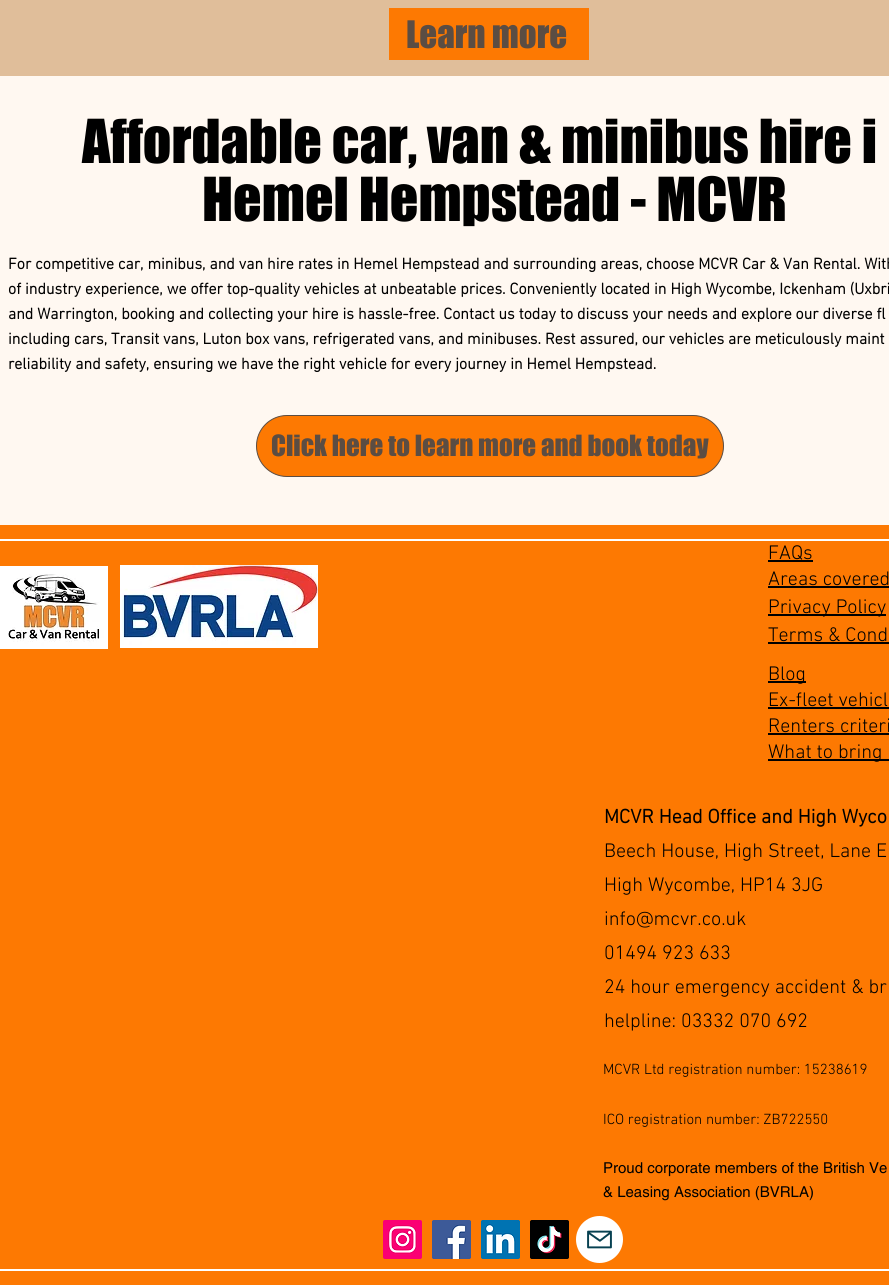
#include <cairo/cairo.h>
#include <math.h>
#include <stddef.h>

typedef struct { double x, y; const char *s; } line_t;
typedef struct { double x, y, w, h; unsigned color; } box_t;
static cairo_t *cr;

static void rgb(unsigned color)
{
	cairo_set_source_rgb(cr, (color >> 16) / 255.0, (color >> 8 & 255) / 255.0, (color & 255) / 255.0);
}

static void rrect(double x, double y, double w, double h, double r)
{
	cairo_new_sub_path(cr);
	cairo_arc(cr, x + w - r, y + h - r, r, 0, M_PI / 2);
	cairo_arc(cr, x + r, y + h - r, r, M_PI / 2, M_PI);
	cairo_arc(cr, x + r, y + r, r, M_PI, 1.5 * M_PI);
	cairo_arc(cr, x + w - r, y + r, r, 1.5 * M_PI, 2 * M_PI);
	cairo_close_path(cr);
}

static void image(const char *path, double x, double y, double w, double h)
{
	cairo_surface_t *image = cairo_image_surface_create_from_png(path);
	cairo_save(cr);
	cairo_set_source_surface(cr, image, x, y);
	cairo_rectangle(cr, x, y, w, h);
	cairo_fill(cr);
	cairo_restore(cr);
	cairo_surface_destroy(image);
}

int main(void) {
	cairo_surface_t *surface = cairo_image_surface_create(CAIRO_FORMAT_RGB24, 889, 1285);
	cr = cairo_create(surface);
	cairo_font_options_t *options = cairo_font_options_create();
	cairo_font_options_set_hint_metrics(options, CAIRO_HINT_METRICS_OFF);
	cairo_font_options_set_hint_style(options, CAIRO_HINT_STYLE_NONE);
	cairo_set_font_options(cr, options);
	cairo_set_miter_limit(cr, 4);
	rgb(0xfff8f1);
	cairo_paint(cr);
	rgb(0xe0be9a);
	cairo_rectangle(cr, 0, 0, 889, 76);
	cairo_fill(cr);
	rgb(0xfd7902);
	cairo_rectangle(cr, 389, 8, 200, 52);
	cairo_fill(cr);
	rrect(256.5, 415.5, 467, 61, 30.5);
	cairo_fill_preserve(cr);
	rgb(0x5b4d43);
	cairo_set_line_width(cr, 1);
	cairo_stroke(cr);
	{
		static const box_t items[] = {
			{0, 525, 889, 760, 0xfd7902},
			{0, 539, 889, 2, 0xffffff},
			{0, 1269, 889, 2, 0xffffff},
			{768, 560, 45, 2, 0x000000},
		};
		for (size_t i = 0; i < sizeof items / sizeof *items; i++) {
			rgb(items[i].color);
			cairo_rectangle(cr, items[i].x, items[i].y, items[i].w, items[i].h);
			cairo_fill(cr);
		}
	}
	image("img/1.png", 0, 566, 108, 83);
	image("img/2.png", 120, 565, 198, 83);
	{
		static const box_t items[] = {
			{768, 586, 121, 2, 0x000000},
			{768, 614, 118, 2, 0x000000},
			{768, 642, 121, 2, 0x000000},
			{768, 681, 38, 2, 0x000000},
			{768, 707, 121, 2, 0x000000},
			{768, 733, 121, 2, 0x000000},
			{768, 759, 121, 2, 0x000000},
		};
		for (size_t i = 0; i < sizeof items / sizeof *items; i++) {
			rgb(items[i].color);
			cairo_rectangle(cr, items[i].x, items[i].y, items[i].w, items[i].h);
			cairo_fill(cr);
		}
	}
	image("img/3.png", 383, 1220, 39, 39);
	image("img/4.png", 432, 1220, 39, 39);
	image("img/5.png", 481, 1220, 39, 39);
	image("img/6.png", 530, 1220, 39, 39);
	rgb(0xffffff);
	cairo_arc(cr, 599.5, 1239.5, 23.5, 0, 2 * M_PI);
	cairo_fill(cr);
	image("img/7.png", 587, 1230, 25, 19);
	cairo_select_font_face(cr, "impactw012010", CAIRO_FONT_SLANT_NORMAL, CAIRO_FONT_WEIGHT_NORMAL);
	cairo_set_font_size(cr, 35);
	rgb(0x5b4d43);
	cairo_move_to(cr, 406, 48);
	cairo_show_text(cr, "Learn more");
	cairo_set_font_size(cr, 56);
	rgb(0x000000);
	cairo_move_to(cr, 82, 163);
	cairo_show_text(cr, "Affordable car, van & minibus hire i");
	cairo_move_to(cr, 202, 221);
	cairo_show_text(cr, "Hemel Hempstead - MCVR");
	cairo_select_font_face(cr, "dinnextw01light", CAIRO_FONT_SLANT_NORMAL, CAIRO_FONT_WEIGHT_BOLD);
	cairo_set_font_size(cr, 16);
	{
		static const line_t items[] = {
			{8, 269, "For competitive car, minibus, and van hire rates in Hemel Hempstead and surrounding areas, choose MCVR Car & Van Rental. With"},
			{8, 294, "of industry experience, we offer top-quality vehicles at unbeatable prices. Conveniently located in High Wycombe, Ickenham (Uxbri"},
			{8, 319, "and Warrington, booking and collecting your hire is hassle-free. Contact us today to discuss your needs and explore our diverse fl"},
			{8, 344, "including cars, Transit vans, Luton box vans, refrigerated vans, and minibuses. Rest assured, our vehicles are meticulously maint"},
			{8, 369, "reliability and safety, ensuring we have the right vehicle for every journey in Hemel Hempstead."},
		};
		for (size_t i = 0; i < sizeof items / sizeof *items; i++) {
			cairo_move_to(cr, items[i].x, items[i].y);
			cairo_show_text(cr, items[i].s);
		}
	}
	cairo_select_font_face(cr, "impactw012010", CAIRO_FONT_SLANT_NORMAL, CAIRO_FONT_WEIGHT_NORMAL);
	cairo_set_font_size(cr, 27);
	rgb(0x5b4d43);
	cairo_move_to(cr, 271, 456);
	cairo_show_text(cr, "Click here to learn more and book today");
	cairo_select_font_face(cr, "dinnextw01light Light", CAIRO_FONT_SLANT_NORMAL, CAIRO_FONT_WEIGHT_NORMAL);
	cairo_set_font_size(cr, 20);
	rgb(0x000000);
	{
		static const line_t items[] = {
			{768, 559, "FAQs"},
			{768, 585, "Areas covered"},
			{768, 613, "Privacy Policy"},
			{768, 641, "Terms & Cond"},
			{768, 680, "Blog"},
			{768, 706, "Ex-fleet vehicl"},
			{768, 732, "Renters criteri"},
			{768, 758, "What to bring"},
		};
		for (size_t i = 0; i < sizeof items / sizeof *items; i++) {
			cairo_move_to(cr, items[i].x, items[i].y);
			cairo_show_text(cr, items[i].s);
		}
	}
	cairo_select_font_face(cr, "dinnextw01light", CAIRO_FONT_SLANT_NORMAL, CAIRO_FONT_WEIGHT_BOLD);
	cairo_move_to(cr, 604, 823);
	cairo_show_text(cr, "MCVR Head Office and High Wyco");
	cairo_select_font_face(cr, "dinnextw01light Light", CAIRO_FONT_SLANT_NORMAL, CAIRO_FONT_WEIGHT_NORMAL);
	{
		static const line_t items[] = {
			{604, 857, "Beech House, High Street, Lane E"},
			{604, 891, "High Wycombe, HP14 3JG"},
			{604, 925, "info@mcvr.co.uk"},
			{604, 959, "01494 923 633"},
			{604, 993, "24 hour emergency accident & br"},
			{604, 1027, "helpline: 03332 070 692"},
		};
		for (size_t i = 0; i < sizeof items / sizeof *items; i++) {
			cairo_move_to(cr, items[i].x, items[i].y);
			cairo_show_text(cr, items[i].s);
		}
	}
	cairo_set_font_size(cr, 15);
	cairo_move_to(cr, 603, 1074);
	cairo_show_text(cr, "MCVR Ltd registration number: 15238619");
	cairo_move_to(cr, 603, 1124);
	cairo_show_text(cr, "ICO registration number: ZB722550");
	cairo_select_font_face(cr, "helvetica", CAIRO_FONT_SLANT_NORMAL, CAIRO_FONT_WEIGHT_NORMAL);
	cairo_move_to(cr, 603, 1173);
	cairo_show_text(cr, "Proud corporate members of the British Ve");
	cairo_move_to(cr, 603, 1197);
	cairo_show_text(cr, "& Leasing Association (BVRLA)");
	cairo_surface_write_to_png(surface, "page.png");
	cairo_font_options_destroy(options);
	cairo_destroy(cr);
	cairo_surface_destroy(surface);
	return 0;
}
